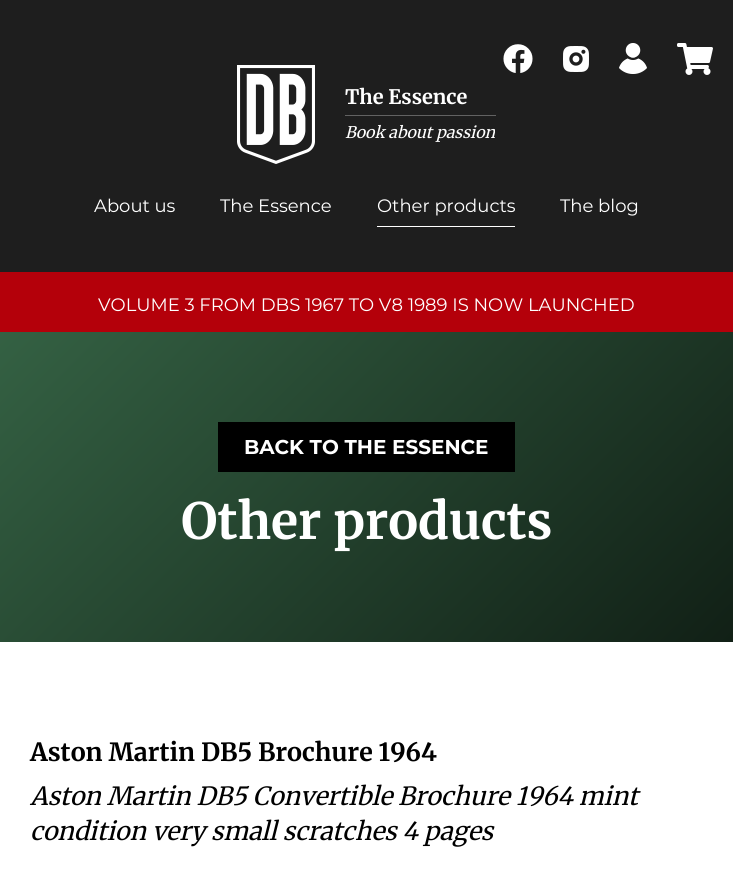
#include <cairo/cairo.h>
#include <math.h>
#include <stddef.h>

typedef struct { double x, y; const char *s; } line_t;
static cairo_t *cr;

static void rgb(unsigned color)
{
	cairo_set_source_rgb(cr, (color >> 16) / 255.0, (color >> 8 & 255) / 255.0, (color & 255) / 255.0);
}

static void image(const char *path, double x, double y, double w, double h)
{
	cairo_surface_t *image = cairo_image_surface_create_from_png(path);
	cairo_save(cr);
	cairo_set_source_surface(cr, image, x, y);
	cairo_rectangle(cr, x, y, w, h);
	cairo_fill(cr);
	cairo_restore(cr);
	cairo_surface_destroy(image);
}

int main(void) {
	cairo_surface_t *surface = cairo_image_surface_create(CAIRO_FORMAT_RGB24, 733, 893);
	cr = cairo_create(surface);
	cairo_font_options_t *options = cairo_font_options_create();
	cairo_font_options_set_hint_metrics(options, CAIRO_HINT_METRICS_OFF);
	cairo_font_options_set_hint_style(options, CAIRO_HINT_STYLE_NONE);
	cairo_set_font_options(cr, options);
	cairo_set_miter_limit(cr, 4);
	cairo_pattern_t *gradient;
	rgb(0xffffff);
	cairo_paint(cr);
	rgb(0x1e1e1e);
	cairo_rectangle(cr, 0, 0, 733, 272);
	cairo_fill(cr);
	image("img/1.png", 237, 65, 78, 99);
	rgb(0x626262);
	cairo_rectangle(cr, 345, 115, 151, 1);
	cairo_fill(cr);
	image("img/2.png", 503, 44, 30, 29);
	image("img/3.png", 563, 46, 26, 26);
	image("img/4.png", 619, 43, 28, 31);
	image("img/5.png", 677, 43, 36, 32);
	rgb(0xffffff);
	cairo_rectangle(cr, 377, 226, 138, 1);
	cairo_fill(cr);
	rgb(0xb4000a);
	cairo_rectangle(cr, 0, 272, 733, 60);
	cairo_fill(cr);
	gradient = cairo_pattern_create_linear(627, 748, 106, 226);
	cairo_pattern_add_color_stop_rgba(gradient, 0, 0.067, 0.125, 0.086, 1);
	cairo_pattern_add_color_stop_rgba(gradient, 1, 0.204, 0.38, 0.263, 1);
	cairo_set_source(cr, gradient);
	cairo_pattern_destroy(gradient);
	cairo_rectangle(cr, 0, 332, 733, 310);
	cairo_fill(cr);
	rgb(0x000000);
	cairo_rectangle(cr, 218, 422, 297, 50);
	cairo_fill(cr);
	cairo_select_font_face(cr, "Merriweather", CAIRO_FONT_SLANT_NORMAL, CAIRO_FONT_WEIGHT_BOLD);
	cairo_set_font_size(cr, 20);
	rgb(0xffffff);
	cairo_move_to(cr, 345, 104);
	cairo_show_text(cr, "The Essence");
	cairo_select_font_face(cr, "Merriweather", CAIRO_FONT_SLANT_ITALIC, CAIRO_FONT_WEIGHT_NORMAL);
	cairo_set_font_size(cr, 16);
	cairo_move_to(cr, 345, 138);
	cairo_show_text(cr, "Book about passion");
	cairo_select_font_face(cr, "Montserrat", CAIRO_FONT_SLANT_NORMAL, CAIRO_FONT_WEIGHT_NORMAL);
	cairo_set_font_size(cr, 18);
	{
		static const line_t items[] = {
			{94, 212, "About us"},
			{220, 212, "The Essence"},
			{377, 212, "Other products"},
			{560, 212, "The blog"},
			{98, 311, "VOLUME 3 FROM DBS 1967 TO V8 1989 IS NOW LAUNCHED"},
		};
		for (size_t i = 0; i < sizeof items / sizeof *items; i++) {
			cairo_move_to(cr, items[i].x, items[i].y);
			cairo_show_text(cr, items[i].s);
		}
	}
	cairo_select_font_face(cr, "Montserrat", CAIRO_FONT_SLANT_NORMAL, CAIRO_FONT_WEIGHT_BOLD);
	cairo_set_font_size(cr, 20);
	cairo_move_to(cr, 244, 454);
	cairo_show_text(cr, "BACK TO THE ESSENCE");
	cairo_select_font_face(cr, "Merriweather", CAIRO_FONT_SLANT_NORMAL, CAIRO_FONT_WEIGHT_BOLD);
	cairo_set_font_size(cr, 50);
	cairo_move_to(cr, 181, 539);
	cairo_show_text(cr, "Other products");
	cairo_set_font_size(cr, 25);
	rgb(0x000000);
	cairo_move_to(cr, 30, 761);
	cairo_show_text(cr, "Aston Martin DB5 Brochure 1964");
	cairo_select_font_face(cr, "Merriweather", CAIRO_FONT_SLANT_ITALIC, CAIRO_FONT_WEIGHT_NORMAL);
	cairo_move_to(cr, 30, 805);
	cairo_show_text(cr, "Aston Martin DB5 Convertible Brochure 1964 mint");
	cairo_move_to(cr, 30, 840);
	cairo_show_text(cr, "condition very small scratches 4 pages");
	cairo_surface_write_to_png(surface, "page.png");
	cairo_font_options_destroy(options);
	cairo_destroy(cr);
	cairo_surface_destroy(surface);
	return 0;
}
